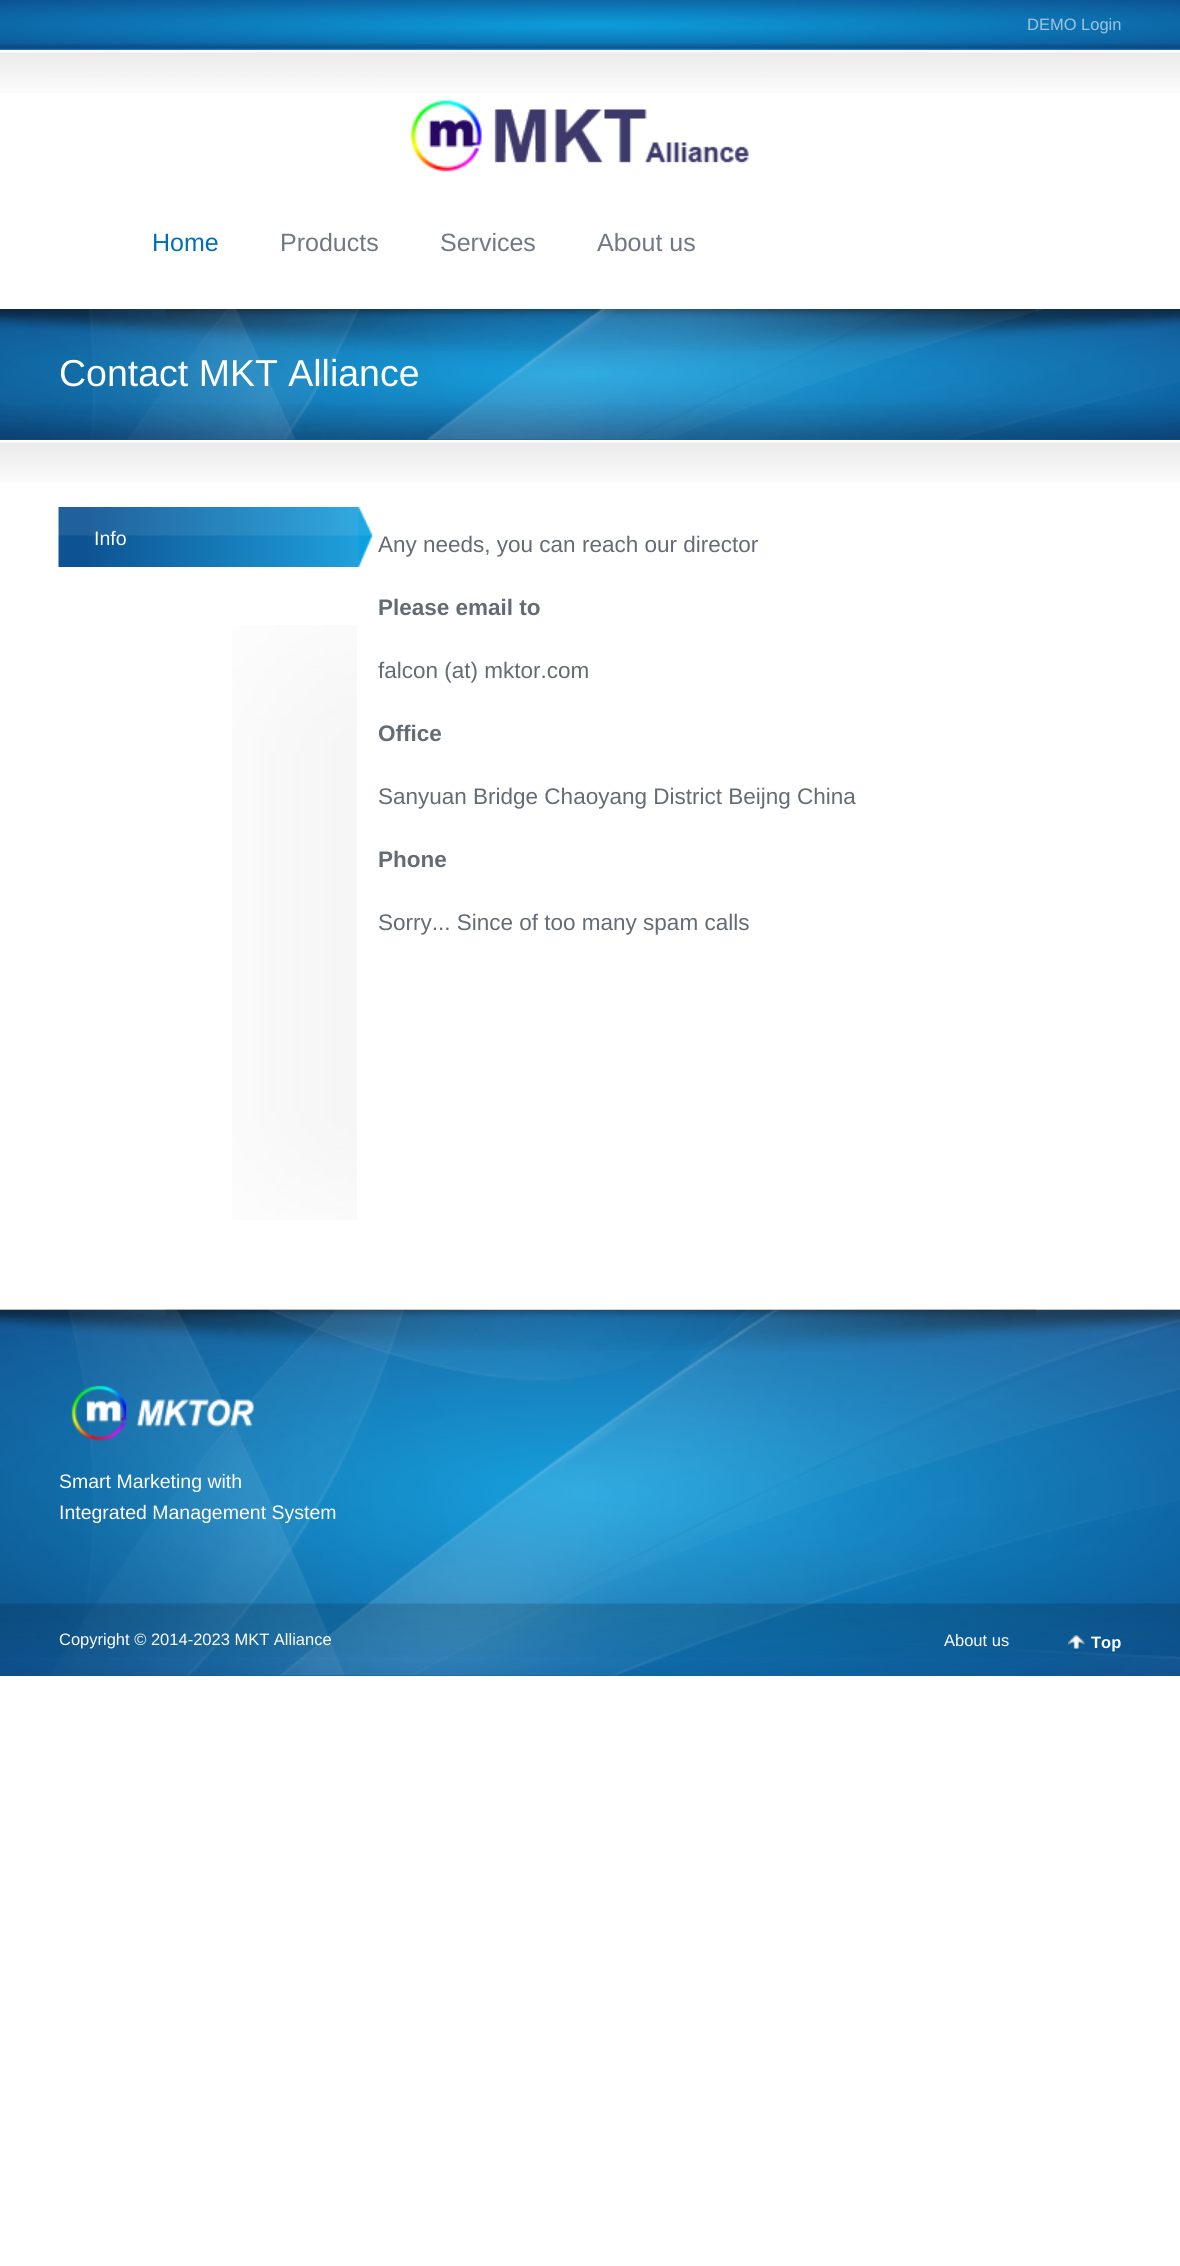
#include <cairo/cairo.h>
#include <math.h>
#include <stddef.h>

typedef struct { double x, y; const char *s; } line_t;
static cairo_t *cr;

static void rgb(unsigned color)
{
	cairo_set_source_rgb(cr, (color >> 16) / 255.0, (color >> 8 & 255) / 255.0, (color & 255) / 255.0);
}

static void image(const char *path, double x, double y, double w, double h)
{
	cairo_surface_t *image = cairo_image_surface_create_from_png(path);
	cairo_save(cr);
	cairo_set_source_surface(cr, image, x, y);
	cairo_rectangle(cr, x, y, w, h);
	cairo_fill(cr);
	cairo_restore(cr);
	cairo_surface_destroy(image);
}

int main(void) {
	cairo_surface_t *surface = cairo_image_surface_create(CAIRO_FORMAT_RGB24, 1180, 2266);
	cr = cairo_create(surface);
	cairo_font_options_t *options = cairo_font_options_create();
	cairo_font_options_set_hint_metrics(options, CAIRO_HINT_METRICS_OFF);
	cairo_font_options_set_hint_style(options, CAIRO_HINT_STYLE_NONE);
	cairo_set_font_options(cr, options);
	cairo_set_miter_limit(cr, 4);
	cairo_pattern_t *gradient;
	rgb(0xffffff);
	cairo_paint(cr);
	gradient = cairo_pattern_create_radial(0, 0, 0, 0, 0, 1);
	cairo_pattern_set_matrix(gradient, &(cairo_matrix_t){1.0 / 835, 0, 0, 1.0 / 35, -1.0 * 590 / 835, -1.0 * 25 / 35});
	cairo_pattern_add_color_stop_rgba(gradient, 0, 0.051, 0.616, 0.863, 1);
	cairo_pattern_add_color_stop_rgba(gradient, 1, 0.051, 0.322, 0.573, 1);
	cairo_set_source(cr, gradient);
	cairo_pattern_destroy(gradient);
	cairo_rectangle(cr, 0, 0, 1180, 50);
	cairo_fill(cr);
	image("img/1.png", 0, 43, 1180, 6);
	image("img/2.png", 0, 49, 1180, 44);
	image("img/3.png", 410, 100, 339, 72);
	gradient = cairo_pattern_create_radial(0, 0, 0, 0, 0, 1);
	cairo_pattern_set_matrix(gradient, &(cairo_matrix_t){1.0 / 835, 0, 0, 1.0 / 92, -1.0 * 590 / 835, -1.0 * 374 / 92});
	cairo_pattern_add_color_stop_rgba(gradient, 0, 0.051, 0.616, 0.863, 1);
	cairo_pattern_add_color_stop_rgba(gradient, 1, 0.051, 0.322, 0.573, 1);
	cairo_set_source(cr, gradient);
	cairo_pattern_destroy(gradient);
	cairo_rectangle(cr, 0, 309, 1180, 131);
	cairo_fill(cr);
	image("img/4.png", 0, 309, 1180, 42);
	image("img/6.png", 0, 404, 1180, 36);
	image("img/5.png", 0, 309, 1180, 131);
	image("img/7.png", 0, 442, 1180, 41);
	image("img/8.png", 232, 625, 125, 595);
	image("img/9.png", 58, 507, 315, 60);
	gradient = cairo_pattern_create_radial(0, 0, 0, 0, 0, 1);
	cairo_pattern_set_matrix(gradient, &(cairo_matrix_t){1.0 / 835, 0, 0, 1.0 / 259, -1.0 * 590 / 835, -1.0 * 1493 / 259});
	cairo_pattern_add_color_stop_rgba(gradient, 0, 0.051, 0.616, 0.863, 1);
	cairo_pattern_add_color_stop_rgba(gradient, 1, 0.051, 0.322, 0.573, 1);
	cairo_set_source(cr, gradient);
	cairo_pattern_destroy(gradient);
	cairo_rectangle(cr, 0, 1310, 1180, 366);
	cairo_fill(cr);
	image("img/10.png", 0, 1309, 1180, 42);
	image("img/11.png", 0, 1309, 1180, 367);
	image("img/12.png", 71, 1385, 183, 56);
	image("img/13.png", 0, 1603, 1180, 54);
	image("img/14.png", 1068, 1635, 17, 14);
	cairo_select_font_face(cr, "Liberation Sans", CAIRO_FONT_SLANT_NORMAL, CAIRO_FONT_WEIGHT_NORMAL);
	cairo_set_font_size(cr, 16.5);
	rgb(0x9ec6e0);
	cairo_move_to(cr, 1027, 30);
	cairo_show_text(cr, "DEMO Login");
	cairo_set_font_size(cr, 25);
	rgb(0x0070b3);
	cairo_move_to(cr, 152, 251);
	cairo_show_text(cr, "Home");
	rgb(0x707885);
	{
		static const line_t items[] = {
			{280, 251, "Products"},
			{440, 251, "Services"},
			{597, 251, "About us"},
		};
		for (size_t i = 0; i < sizeof items / sizeof *items; i++) {
			cairo_move_to(cr, items[i].x, items[i].y);
			cairo_show_text(cr, items[i].s);
		}
	}
	cairo_set_font_size(cr, 37.5);
	rgb(0xffffff);
	cairo_move_to(cr, 59, 386);
	cairo_show_text(cr, "Contact MKT Alliance");
	cairo_set_font_size(cr, 19.5);
	cairo_move_to(cr, 94, 545);
	cairo_show_text(cr, "Info");
	cairo_set_font_size(cr, 22.5);
	rgb(0x636b75);
	cairo_move_to(cr, 378, 552);
	cairo_show_text(cr, "Any needs, you can reach our director");
	cairo_select_font_face(cr, "Liberation Sans", CAIRO_FONT_SLANT_NORMAL, CAIRO_FONT_WEIGHT_BOLD);
	cairo_move_to(cr, 378, 615);
	cairo_show_text(cr, "Please email to");
	cairo_select_font_face(cr, "Liberation Sans", CAIRO_FONT_SLANT_NORMAL, CAIRO_FONT_WEIGHT_NORMAL);
	cairo_move_to(cr, 378, 678);
	cairo_show_text(cr, "falcon (at) mktor.com");
	cairo_select_font_face(cr, "Liberation Sans", CAIRO_FONT_SLANT_NORMAL, CAIRO_FONT_WEIGHT_BOLD);
	cairo_move_to(cr, 378, 741);
	cairo_show_text(cr, "Office");
	cairo_select_font_face(cr, "Liberation Sans", CAIRO_FONT_SLANT_NORMAL, CAIRO_FONT_WEIGHT_NORMAL);
	cairo_move_to(cr, 378, 804);
	cairo_show_text(cr, "Sanyuan Bridge Chaoyang District Beijng China");
	cairo_select_font_face(cr, "Liberation Sans", CAIRO_FONT_SLANT_NORMAL, CAIRO_FONT_WEIGHT_BOLD);
	cairo_move_to(cr, 378, 867);
	cairo_show_text(cr, "Phone");
	cairo_select_font_face(cr, "Liberation Sans", CAIRO_FONT_SLANT_NORMAL, CAIRO_FONT_WEIGHT_NORMAL);
	cairo_move_to(cr, 378, 930);
	cairo_show_text(cr, "Sorry... Since of too many spam calls");
	cairo_set_font_size(cr, 19.5);
	rgb(0xffffff);
	cairo_move_to(cr, 59, 1488);
	cairo_show_text(cr, "Smart Marketing with");
	cairo_move_to(cr, 59, 1519);
	cairo_show_text(cr, "Integrated Management System");
	cairo_set_font_size(cr, 16.5);
	cairo_move_to(cr, 59, 1645);
	cairo_show_text(cr, "Copyright © 2014-2023 MKT Alliance");
	cairo_move_to(cr, 944, 1646);
	cairo_show_text(cr, "About us");
	cairo_select_font_face(cr, "Liberation Sans", CAIRO_FONT_SLANT_NORMAL, CAIRO_FONT_WEIGHT_BOLD);
	cairo_move_to(cr, 1091, 1648);
	cairo_show_text(cr, "Top");
	cairo_surface_write_to_png(surface, "page.png");
	cairo_font_options_destroy(options);
	cairo_destroy(cr);
	cairo_surface_destroy(surface);
	return 0;
}
